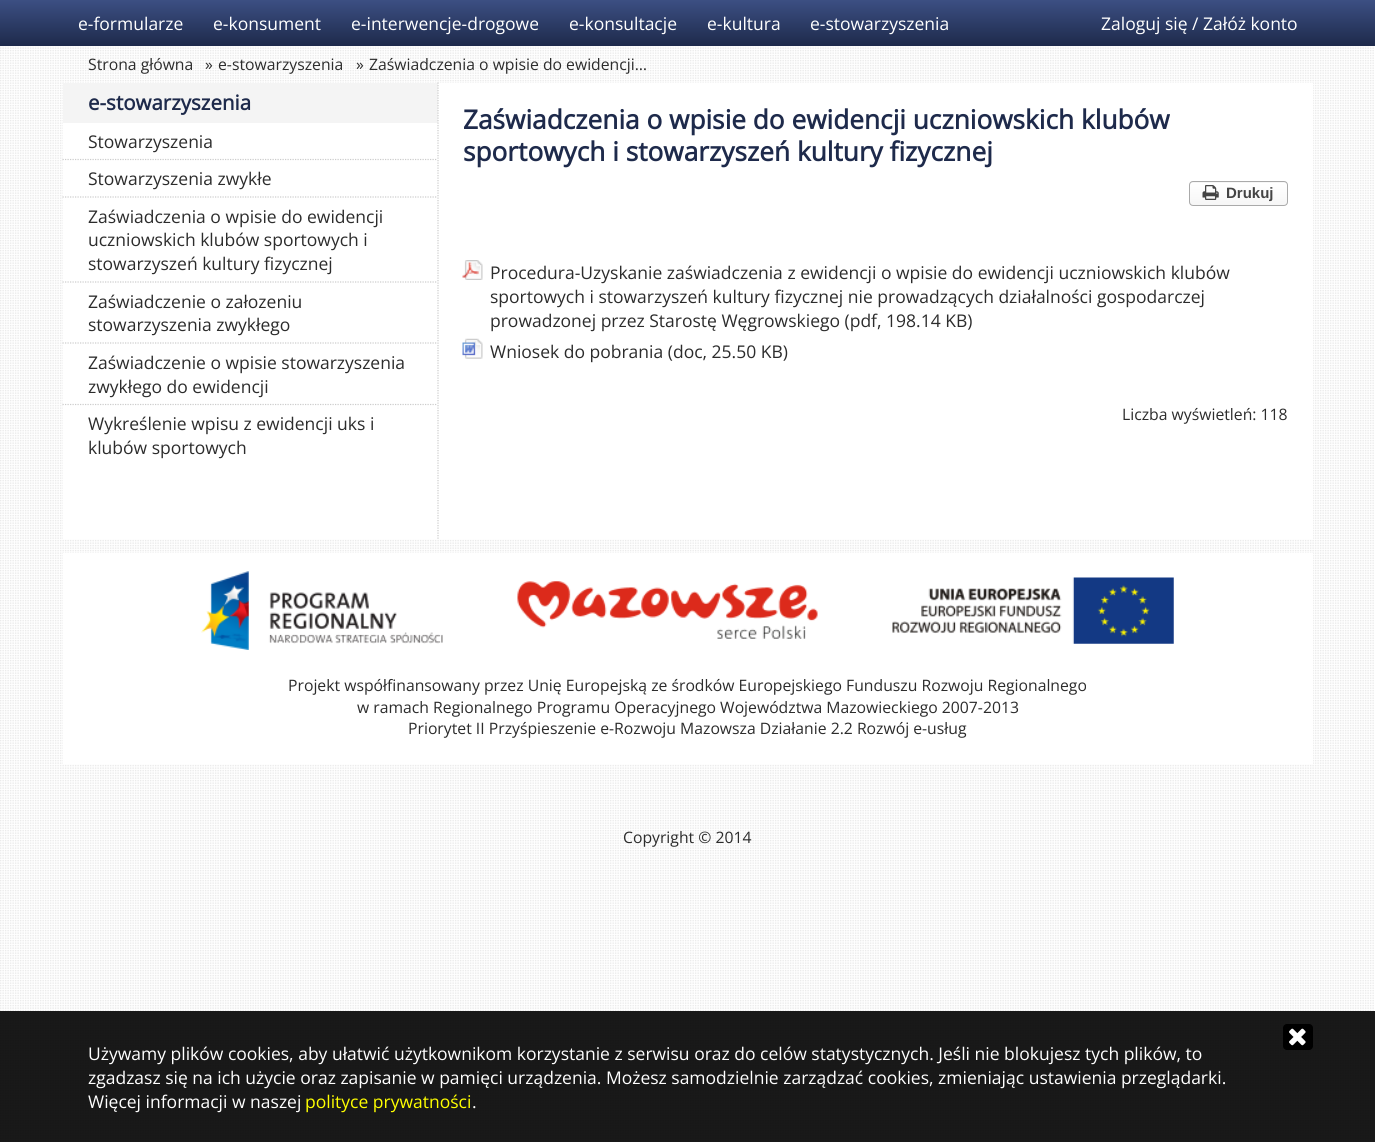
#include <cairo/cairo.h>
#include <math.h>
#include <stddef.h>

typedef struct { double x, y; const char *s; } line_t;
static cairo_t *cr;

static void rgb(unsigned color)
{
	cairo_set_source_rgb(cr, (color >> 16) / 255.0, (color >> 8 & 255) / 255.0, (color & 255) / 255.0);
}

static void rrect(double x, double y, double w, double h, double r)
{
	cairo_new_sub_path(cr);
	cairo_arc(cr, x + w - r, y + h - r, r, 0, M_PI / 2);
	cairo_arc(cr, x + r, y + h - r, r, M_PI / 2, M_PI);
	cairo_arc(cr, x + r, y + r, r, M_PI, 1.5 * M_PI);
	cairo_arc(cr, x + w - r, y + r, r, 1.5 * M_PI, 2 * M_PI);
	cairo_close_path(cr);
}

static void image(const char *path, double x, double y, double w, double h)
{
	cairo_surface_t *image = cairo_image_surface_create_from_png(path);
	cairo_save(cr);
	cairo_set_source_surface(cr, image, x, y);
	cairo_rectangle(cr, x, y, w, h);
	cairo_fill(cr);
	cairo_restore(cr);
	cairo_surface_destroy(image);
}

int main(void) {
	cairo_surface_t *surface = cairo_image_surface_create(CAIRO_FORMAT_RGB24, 1375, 1142);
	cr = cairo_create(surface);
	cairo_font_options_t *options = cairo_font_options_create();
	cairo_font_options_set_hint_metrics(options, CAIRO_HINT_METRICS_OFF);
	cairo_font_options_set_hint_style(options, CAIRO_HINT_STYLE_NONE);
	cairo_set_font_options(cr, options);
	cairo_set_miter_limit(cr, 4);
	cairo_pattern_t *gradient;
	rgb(0xffffff);
	cairo_paint(cr);
	image("img/1.png", 0, 46, 1374, 1096);
	gradient = cairo_pattern_create_linear(688, 0, 688, 46);
	cairo_pattern_add_color_stop_rgba(gradient, 0, 0.235, 0.31, 0.514, 1);
	cairo_pattern_add_color_stop_rgba(gradient, 1, 0.118, 0.165, 0.294, 1);
	cairo_set_source(cr, gradient);
	cairo_pattern_destroy(gradient);
	cairo_rectangle(cr, 0, 0, 1375, 46);
	cairo_fill(cr);
	rgb(0xffffff);
	cairo_rectangle(cr, 63, 83, 1250, 456);
	cairo_fill(cr);
	rgb(0xf4f4f4);
	cairo_rectangle(cr, 63, 83, 375, 40);
	cairo_fill(cr);
	cairo_new_path(cr);
	cairo_move_to(cr, 62.5, 159.5);
	cairo_line_to(cr, 437.5, 159.5);
	rgb(0xcccccc);
	cairo_set_line_width(cr, 1.2);
	cairo_set_dash(cr, (double[]){1.25, 1.25}, 2, 0);
	cairo_stroke(cr);
	cairo_new_path(cr);
	cairo_move_to(cr, 62.5, 197);
	cairo_line_to(cr, 437.5, 197);
	cairo_stroke(cr);
	cairo_new_path(cr);
	cairo_move_to(cr, 62.5, 282);
	cairo_line_to(cr, 437.5, 282);
	cairo_stroke(cr);
	cairo_new_path(cr);
	cairo_move_to(cr, 62.5, 343);
	cairo_line_to(cr, 437.5, 343);
	cairo_stroke(cr);
	cairo_new_path(cr);
	cairo_move_to(cr, 62.5, 404.5);
	cairo_line_to(cr, 437.5, 404.5);
	cairo_stroke(cr);
	cairo_new_path(cr);
	cairo_move_to(cr, 438, 82.5);
	cairo_line_to(cr, 438, 540);
	cairo_stroke(cr);
	cairo_save(cr);
	rrect(1189, 181, 99, 25, 4);
	cairo_clip(cr);
	gradient = cairo_pattern_create_linear(1238, 160, 1238, 183);
	cairo_pattern_add_color_stop_rgba(gradient, 0, 1, 1, 1, 1);
	cairo_pattern_add_color_stop_rgba(gradient, 1, 0.965, 0.965, 0.965, 1);
	cairo_set_source(cr, gradient);
	cairo_pattern_destroy(gradient);
	cairo_rectangle(cr, 1189, 181, 99, 2);
	cairo_fill(cr);
	gradient = cairo_pattern_create_linear(1238, 183, 1238, 205);
	cairo_pattern_add_color_stop_rgba(gradient, 0, 1, 1, 1, 1);
	cairo_pattern_add_color_stop_rgba(gradient, 1, 0.965, 0.965, 0.965, 1);
	cairo_set_source(cr, gradient);
	cairo_pattern_destroy(gradient);
	cairo_rectangle(cr, 1189, 183, 99, 22);
	cairo_fill(cr);
	cairo_restore(cr);
	rrect(1189.5, 181.5, 98, 24, 3.5);
	rgb(0xaaaaaa);
	cairo_set_line_width(cr, 1);
	cairo_set_dash(cr, NULL, 0, 0);
	cairo_stroke(cr);
	image("img/2.png", 1202, 185, 17, 15);
	image("img/3.png", 462, 260, 21, 20);
	image("img/4.png", 462, 338, 21, 21);
	rgb(0xffffff);
	cairo_rectangle(cr, 63, 553, 1250, 211);
	cairo_fill(cr);
	image("img/5.png", 201, 571, 973, 79);
	cairo_set_source_rgba(cr, 0, 0, 0, 0.9);
	cairo_rectangle(cr, 0, 1011, 1375, 131);
	cairo_fill(cr);
	rgb(0x000000);
	rrect(1283, 1024, 30, 26, 4);
	cairo_fill(cr);
	image("img/6.png", 1289, 1028, 17, 18);
	cairo_select_font_face(cr, "Open Sans", CAIRO_FONT_SLANT_NORMAL, CAIRO_FONT_WEIGHT_NORMAL);
	cairo_set_font_size(cr, 17.5);
	rgb(0xffffff);
	{
		static const line_t items[] = {
			{78, 30, "e-formularze"},
			{213, 30, "e-konsument"},
			{351, 30, "e-interwencje-drogowe"},
			{569, 30, "e-konsultacje"},
			{707, 30, "e-kultura"},
			{810, 30, "e-stowarzyszenia"},
			{1101, 30, "Zaloguj się / Załóż konto"},
		};
		for (size_t i = 0; i < sizeof items / sizeof *items; i++) {
			cairo_move_to(cr, items[i].x, items[i].y);
			cairo_show_text(cr, items[i].s);
		}
	}
	cairo_set_font_size(cr, 15.75);
	rgb(0x2c2c2c);
	{
		static const line_t items[] = {
			{88, 70, "Strona główna"},
			{205, 70, "»"},
			{218, 70, "e-stowarzyszenia"},
			{356, 70, "»"},
			{369, 70, "Zaświadczenia o wpisie do ewidencji…"},
		};
		for (size_t i = 0; i < sizeof items / sizeof *items; i++) {
			cairo_move_to(cr, items[i].x, items[i].y);
			cairo_show_text(cr, items[i].s);
		}
	}
	cairo_select_font_face(cr, "Open Sans", CAIRO_FONT_SLANT_NORMAL, CAIRO_FONT_WEIGHT_BOLD);
	cairo_set_font_size(cr, 20.5);
	rgb(0x1e2a4b);
	cairo_move_to(cr, 88, 110);
	cairo_show_text(cr, "e-stowarzyszenia");
	cairo_select_font_face(cr, "Open Sans", CAIRO_FONT_SLANT_NORMAL, CAIRO_FONT_WEIGHT_NORMAL);
	cairo_set_font_size(cr, 17.5);
	rgb(0x2c2c2c);
	{
		static const line_t items[] = {
			{88, 148, "Stowarzyszenia"},
			{88, 185, "Stowarzyszenia zwykłe"},
			{88, 223, "Zaświadczenia o wpisie do ewidencji"},
			{88, 246, "uczniowskich klubów sportowych i"},
			{88, 270, "stowarzyszeń kultury fizycznej"},
			{88, 308, "Zaświadczenie o załozeniu"},
			{88, 331, "stowarzyszenia zwykłego"},
			{88, 369, "Zaświadczenie o wpisie stowarzyszenia"},
			{88, 393, "zwykłego do ewidencji"},
			{88, 430, "Wykreślenie wpisu z ewidencji uks i"},
			{88, 454, "klubów sportowych"},
		};
		for (size_t i = 0; i < sizeof items / sizeof *items; i++) {
			cairo_move_to(cr, items[i].x, items[i].y);
			cairo_show_text(cr, items[i].s);
		}
	}
	cairo_select_font_face(cr, "Open Sans", CAIRO_FONT_SLANT_NORMAL, CAIRO_FONT_WEIGHT_BOLD);
	cairo_set_font_size(cr, 26.25);
	rgb(0x1e2a4b);
	cairo_move_to(cr, 463, 129);
	cairo_show_text(cr, "Zaświadczenia o wpisie do ewidencji uczniowskich klubów");
	cairo_move_to(cr, 463, 161);
	cairo_show_text(cr, "sportowych i stowarzyszeń kultury fizycznej");
	cairo_select_font_face(cr, "Liberation Sans", CAIRO_FONT_SLANT_NORMAL, CAIRO_FONT_WEIGHT_BOLD);
	cairo_set_font_size(cr, 15);
	rgb(0x444444);
	cairo_move_to(cr, 1226, 198);
	cairo_show_text(cr, "Drukuj");
	cairo_select_font_face(cr, "Open Sans", CAIRO_FONT_SLANT_NORMAL, CAIRO_FONT_WEIGHT_NORMAL);
	cairo_set_font_size(cr, 17.5);
	rgb(0x2c2c2c);
	{
		static const line_t items[] = {
			{490, 279, "Procedura-Uzyskanie zaświadczenia z ewidencji o wpisie do ewidencji uczniowskich klubów"},
			{490, 303, "sportowych i stowarzyszeń kultury fizycznej nie prowadzących działalności gospodarczej"},
			{490, 327, "prowadzonej przez Starostę Węgrowskiego (pdf, 198.14 KB)"},
			{490, 358, "Wniosek do pobrania (doc, 25.50 KB)"},
		};
		for (size_t i = 0; i < sizeof items / sizeof *items; i++) {
			cairo_move_to(cr, items[i].x, items[i].y);
			cairo_show_text(cr, items[i].s);
		}
	}
	cairo_set_font_size(cr, 15.75);
	{
		static const line_t items[] = {
			{1122, 420, "Liczba wyświetleń: 118"},
			{288, 691, "Projekt współfinansowany przez Unię Europejską ze środków Europejskiego Funduszu Rozwoju Regionalnego"},
			{357, 713, "w ramach Regionalnego Programu Operacyjnego Województwa Mazowieckiego 2007-2013"},
			{408, 734, "Priorytet II Przyśpieszenie e-Rozwoju Mazowsza Działanie 2.2 Rozwój e-usług"},
			{623, 843, "Copyright © 2014"},
		};
		for (size_t i = 0; i < sizeof items / sizeof *items; i++) {
			cairo_move_to(cr, items[i].x, items[i].y);
			cairo_show_text(cr, items[i].s);
		}
	}
	cairo_set_font_size(cr, 17.5);
	rgb(0xffffff);
	{
		static const line_t items[] = {
			{88, 1060, "Używamy plików cookies, aby ułatwić użytkownikom korzystanie z serwisu oraz do celów statystycznych. Jeśli nie blokujesz tych plików, to"},
			{88, 1084, "zgadzasz się na ich użycie oraz zapisanie w pamięci urządzenia. Możesz samodzielnie zarządzać cookies, zmieniając ustawienia przeglądarki."},
			{88, 1108, "Więcej informacji w naszej"},
		};
		for (size_t i = 0; i < sizeof items / sizeof *items; i++) {
			cairo_move_to(cr, items[i].x, items[i].y);
			cairo_show_text(cr, items[i].s);
		}
	}
	rgb(0xffff00);
	cairo_move_to(cr, 305, 1108);
	cairo_show_text(cr, "polityce prywatności");
	rgb(0xffffff);
	cairo_move_to(cr, 472, 1108);
	cairo_show_text(cr, ".");
	cairo_surface_write_to_png(surface, "page.png");
	cairo_font_options_destroy(options);
	cairo_destroy(cr);
	cairo_surface_destroy(surface);
	return 0;
}
